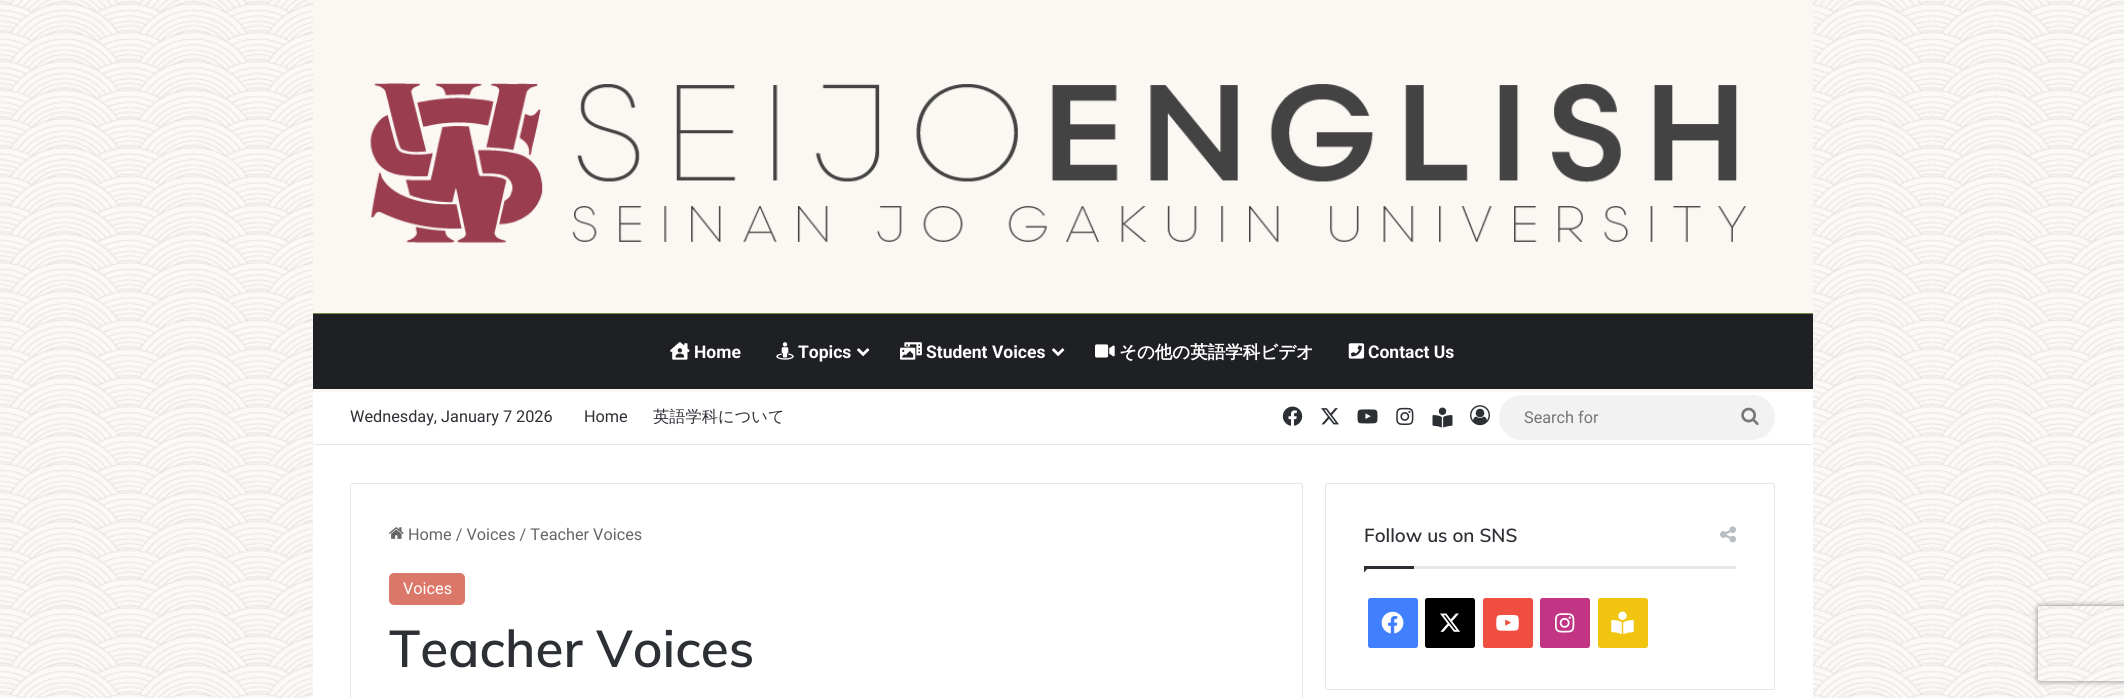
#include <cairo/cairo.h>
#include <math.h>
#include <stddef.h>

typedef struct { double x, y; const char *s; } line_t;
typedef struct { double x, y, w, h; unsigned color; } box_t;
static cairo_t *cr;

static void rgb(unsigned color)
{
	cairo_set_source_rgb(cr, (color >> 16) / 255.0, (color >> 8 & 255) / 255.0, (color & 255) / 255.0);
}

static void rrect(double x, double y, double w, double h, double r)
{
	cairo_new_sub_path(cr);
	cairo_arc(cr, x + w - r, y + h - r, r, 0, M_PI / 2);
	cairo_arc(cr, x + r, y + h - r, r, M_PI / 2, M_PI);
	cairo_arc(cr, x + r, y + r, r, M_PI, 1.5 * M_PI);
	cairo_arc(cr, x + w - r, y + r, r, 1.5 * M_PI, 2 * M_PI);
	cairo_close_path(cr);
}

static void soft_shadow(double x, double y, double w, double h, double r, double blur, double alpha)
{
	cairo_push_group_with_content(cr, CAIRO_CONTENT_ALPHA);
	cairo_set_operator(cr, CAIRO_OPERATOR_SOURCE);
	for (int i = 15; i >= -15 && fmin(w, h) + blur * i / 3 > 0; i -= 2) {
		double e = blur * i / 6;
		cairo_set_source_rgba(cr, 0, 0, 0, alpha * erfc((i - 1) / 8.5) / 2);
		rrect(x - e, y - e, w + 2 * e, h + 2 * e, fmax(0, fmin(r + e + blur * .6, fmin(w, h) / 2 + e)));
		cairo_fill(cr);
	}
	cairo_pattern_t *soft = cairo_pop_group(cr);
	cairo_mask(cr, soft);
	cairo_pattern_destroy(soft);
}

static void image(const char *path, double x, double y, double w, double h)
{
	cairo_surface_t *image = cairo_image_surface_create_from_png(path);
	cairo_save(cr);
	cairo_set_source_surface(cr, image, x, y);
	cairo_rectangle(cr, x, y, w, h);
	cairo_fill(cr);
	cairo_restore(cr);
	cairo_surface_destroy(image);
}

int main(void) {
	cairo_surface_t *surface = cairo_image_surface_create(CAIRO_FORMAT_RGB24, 2124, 698);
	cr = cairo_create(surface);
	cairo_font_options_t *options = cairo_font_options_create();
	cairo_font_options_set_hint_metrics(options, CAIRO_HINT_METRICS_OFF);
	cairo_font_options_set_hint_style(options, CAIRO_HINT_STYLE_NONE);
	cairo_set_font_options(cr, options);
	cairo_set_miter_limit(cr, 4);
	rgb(0xfbf8f3);
	cairo_paint(cr);
	image("img/1.png", 0, 0, 2124, 698);
	rgb(0xffffff);
	cairo_rectangle(cr, 313, 445, 1500, 253);
	cairo_fill(cr);
	rgb(0xfbf8f3);
	cairo_rectangle(cr, 313, 0, 1500, 313);
	cairo_fill(cr);
	image("img/2.png", 370, 83, 1377, 160);
	{
		static const box_t items[] = {
			{313, 314, 1500, 75, 0x1f2024},
			{313, 313, 1500, 1, 0x7b8e47},
			{313, 389, 1500, 3, 0xfbf8f3},
		};
		for (size_t i = 0; i < sizeof items / sizeof *items; i++) {
			rgb(items[i].color);
			cairo_rectangle(cr, items[i].x, items[i].y, items[i].w, items[i].h);
			cairo_fill(cr);
		}
	}
	image("img/3.png", 670, 342, 20, 18);
	image("img/4.png", 776, 342, 18, 18);
	image("img/5.png", 857, 348, 13, 9);
	image("img/6.png", 900, 342, 22, 18);
	image("img/5.png", 1052, 348, 13, 9);
	image("img/7.png", 1095, 344, 20, 14);
	image("img/8.png", 1348, 343, 17, 16);
	rgb(0xffffff);
	cairo_rectangle(cr, 313, 392, 1500, 52);
	cairo_fill(cr);
	rgb(0xe6e6e6);
	cairo_rectangle(cr, 313, 444, 1500, 1);
	cairo_fill(cr);
	image("img/9.png", 1282, 406, 21, 20);
	image("img/10.png", 1321, 408, 18, 17);
	image("img/11.png", 1357, 409, 21, 15);
	image("img/12.png", 1396, 407, 18, 18);
	image("img/13.png", 1432, 407, 21, 21);
	image("img/14.png", 1470, 405, 20, 21);
	rgb(0xf2f2f2);
	rrect(1499, 395, 276, 45, 22.5);
	cairo_fill(cr);
	image("img/15.png", 1741, 407, 18, 19);
	rrect(350.5, 483.5, 952, 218, 2);
	rgb(0xe6e6e6);
	cairo_set_line_width(cr, 1);
	cairo_stroke(cr);
	image("img/16.png", 389, 527, 15, 12);
	rgb(0xdb786a);
	rrect(389, 573, 76, 32, 5);
	cairo_fill(cr);
	rrect(1325.5, 483.5, 449, 206, 2);
	rgb(0xe6e6e6);
	cairo_stroke(cr);
	cairo_rectangle(cr, 1414, 566, 322, 3);
	cairo_fill(cr);
	image("img/17.png", 1720, 526, 16, 17);
	rgb(0x2c2f34);
	cairo_new_path(cr);
	cairo_move_to(cr, 1364, 566);
	cairo_line_to(cr, 1370, 566);
	cairo_line_to(cr, 1364, 572.5);
	cairo_close_path(cr);
	cairo_fill(cr);
	cairo_rectangle(cr, 1364, 566, 50, 3);
	cairo_fill(cr);
	rgb(0x4080ff);
	rrect(1368, 598, 50, 50, 2.5);
	cairo_fill(cr);
	image("img/18.png", 1381, 611, 23, 23);
	rgb(0x000000);
	rrect(1425, 598, 50, 50, 2.5);
	cairo_fill(cr);
	image("img/19.png", 1440, 613, 20, 19);
	rgb(0xef4e41);
	rrect(1483, 598, 50, 50, 2.5);
	cairo_fill(cr);
	image("img/20.png", 1496, 614, 23, 17);
	rgb(0xc13584);
	rrect(1540, 598, 50, 50, 2.5);
	cairo_fill(cr);
	image("img/21.png", 1555, 613, 20, 20);
	rgb(0xf1c40f);
	rrect(1598, 598, 50, 50, 2.5);
	cairo_fill(cr);
	image("img/22.png", 1611, 611, 23, 23);
	cairo_save(cr);
	cairo_set_fill_rule(cr, CAIRO_FILL_RULE_EVEN_ODD);
	cairo_new_path(cr);
	cairo_move_to(cr, 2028, 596);
	cairo_line_to(cr, 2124, 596);
	cairo_line_to(cr, 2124, 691);
	cairo_line_to(cr, 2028, 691);
	cairo_close_path(cr);
	cairo_move_to(cr, 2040.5, 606);
	cairo_line_to(cr, 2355.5, 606);
	cairo_curve_to(cr, 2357, 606, 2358, 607, 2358, 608.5);
	cairo_line_to(cr, 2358, 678.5);
	cairo_curve_to(cr, 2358, 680, 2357, 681, 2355.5, 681);
	cairo_line_to(cr, 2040.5, 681);
	cairo_curve_to(cr, 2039, 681, 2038, 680, 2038, 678.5);
	cairo_line_to(cr, 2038, 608.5);
	cairo_curve_to(cr, 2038, 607, 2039, 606, 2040.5, 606);
	cairo_close_path(cr);
	cairo_clip(cr);
	rgb(0x808080);
	soft_shadow(2038, 606, 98, 75, 2.5, 3, 1);
	cairo_restore(cr);
	cairo_select_font_face(cr, "Roboto", CAIRO_FONT_SLANT_NORMAL, CAIRO_FONT_WEIGHT_BOLD);
	cairo_set_font_size(cr, 17.5);
	rgb(0xffffff);
	{
		static const line_t items[] = {
			{694, 358, "Home"},
			{798, 358, "Topics"},
			{926, 358, "Student Voices"},
		};
		for (size_t i = 0; i < sizeof items / sizeof *items; i++) {
			cairo_move_to(cr, items[i].x, items[i].y);
			cairo_show_text(cr, items[i].s);
		}
	}
	cairo_select_font_face(cr, "WenQuanYi Zen Hei", CAIRO_FONT_SLANT_NORMAL, CAIRO_FONT_WEIGHT_BOLD);
	cairo_move_to(cr, 1119, 358);
	cairo_show_text(cr, "その他の英語学科ビデオ");
	cairo_select_font_face(cr, "Roboto", CAIRO_FONT_SLANT_NORMAL, CAIRO_FONT_WEIGHT_BOLD);
	cairo_move_to(cr, 1368, 358);
	cairo_show_text(cr, "Contact Us");
	cairo_select_font_face(cr, "Roboto", CAIRO_FONT_SLANT_NORMAL, CAIRO_FONT_WEIGHT_NORMAL);
	cairo_set_font_size(cr, 16.25);
	rgb(0x2c2f34);
	cairo_move_to(cr, 350, 422);
	cairo_show_text(cr, "Wednesday, January 7 2026");
	cairo_move_to(cr, 584, 422);
	cairo_show_text(cr, "Home");
	cairo_select_font_face(cr, "WenQuanYi Zen Hei Medium", CAIRO_FONT_SLANT_NORMAL, CAIRO_FONT_WEIGHT_NORMAL);
	cairo_move_to(cr, 653, 422);
	cairo_show_text(cr, "英語学科について");
	cairo_select_font_face(cr, "Roboto", CAIRO_FONT_SLANT_NORMAL, CAIRO_FONT_WEIGHT_NORMAL);
	rgb(0x757575);
	cairo_move_to(cr, 1524, 423);
	cairo_show_text(cr, "Search for");
	rgb(0x666666);
	cairo_move_to(cr, 408, 540);
	cairo_show_text(cr, "Home / Voices / Teacher Voices");
	rgb(0xffffff);
	cairo_move_to(cr, 403, 594);
	cairo_show_text(cr, "Voices");
	cairo_select_font_face(cr, "Muli SemiBold", CAIRO_FONT_SLANT_NORMAL, CAIRO_FONT_WEIGHT_NORMAL);
	cairo_set_font_size(cr, 51.25);
	rgb(0x2c2f34);
	cairo_move_to(cr, 389, 667);
	cairo_show_text(cr, "Teacher Voices");
	cairo_set_font_size(cr, 18.75);
	cairo_move_to(cr, 1364, 542);
	cairo_show_text(cr, "Follow us on SNS");
	cairo_surface_write_to_png(surface, "page.png");
	cairo_font_options_destroy(options);
	cairo_destroy(cr);
	cairo_surface_destroy(surface);
	return 0;
}
